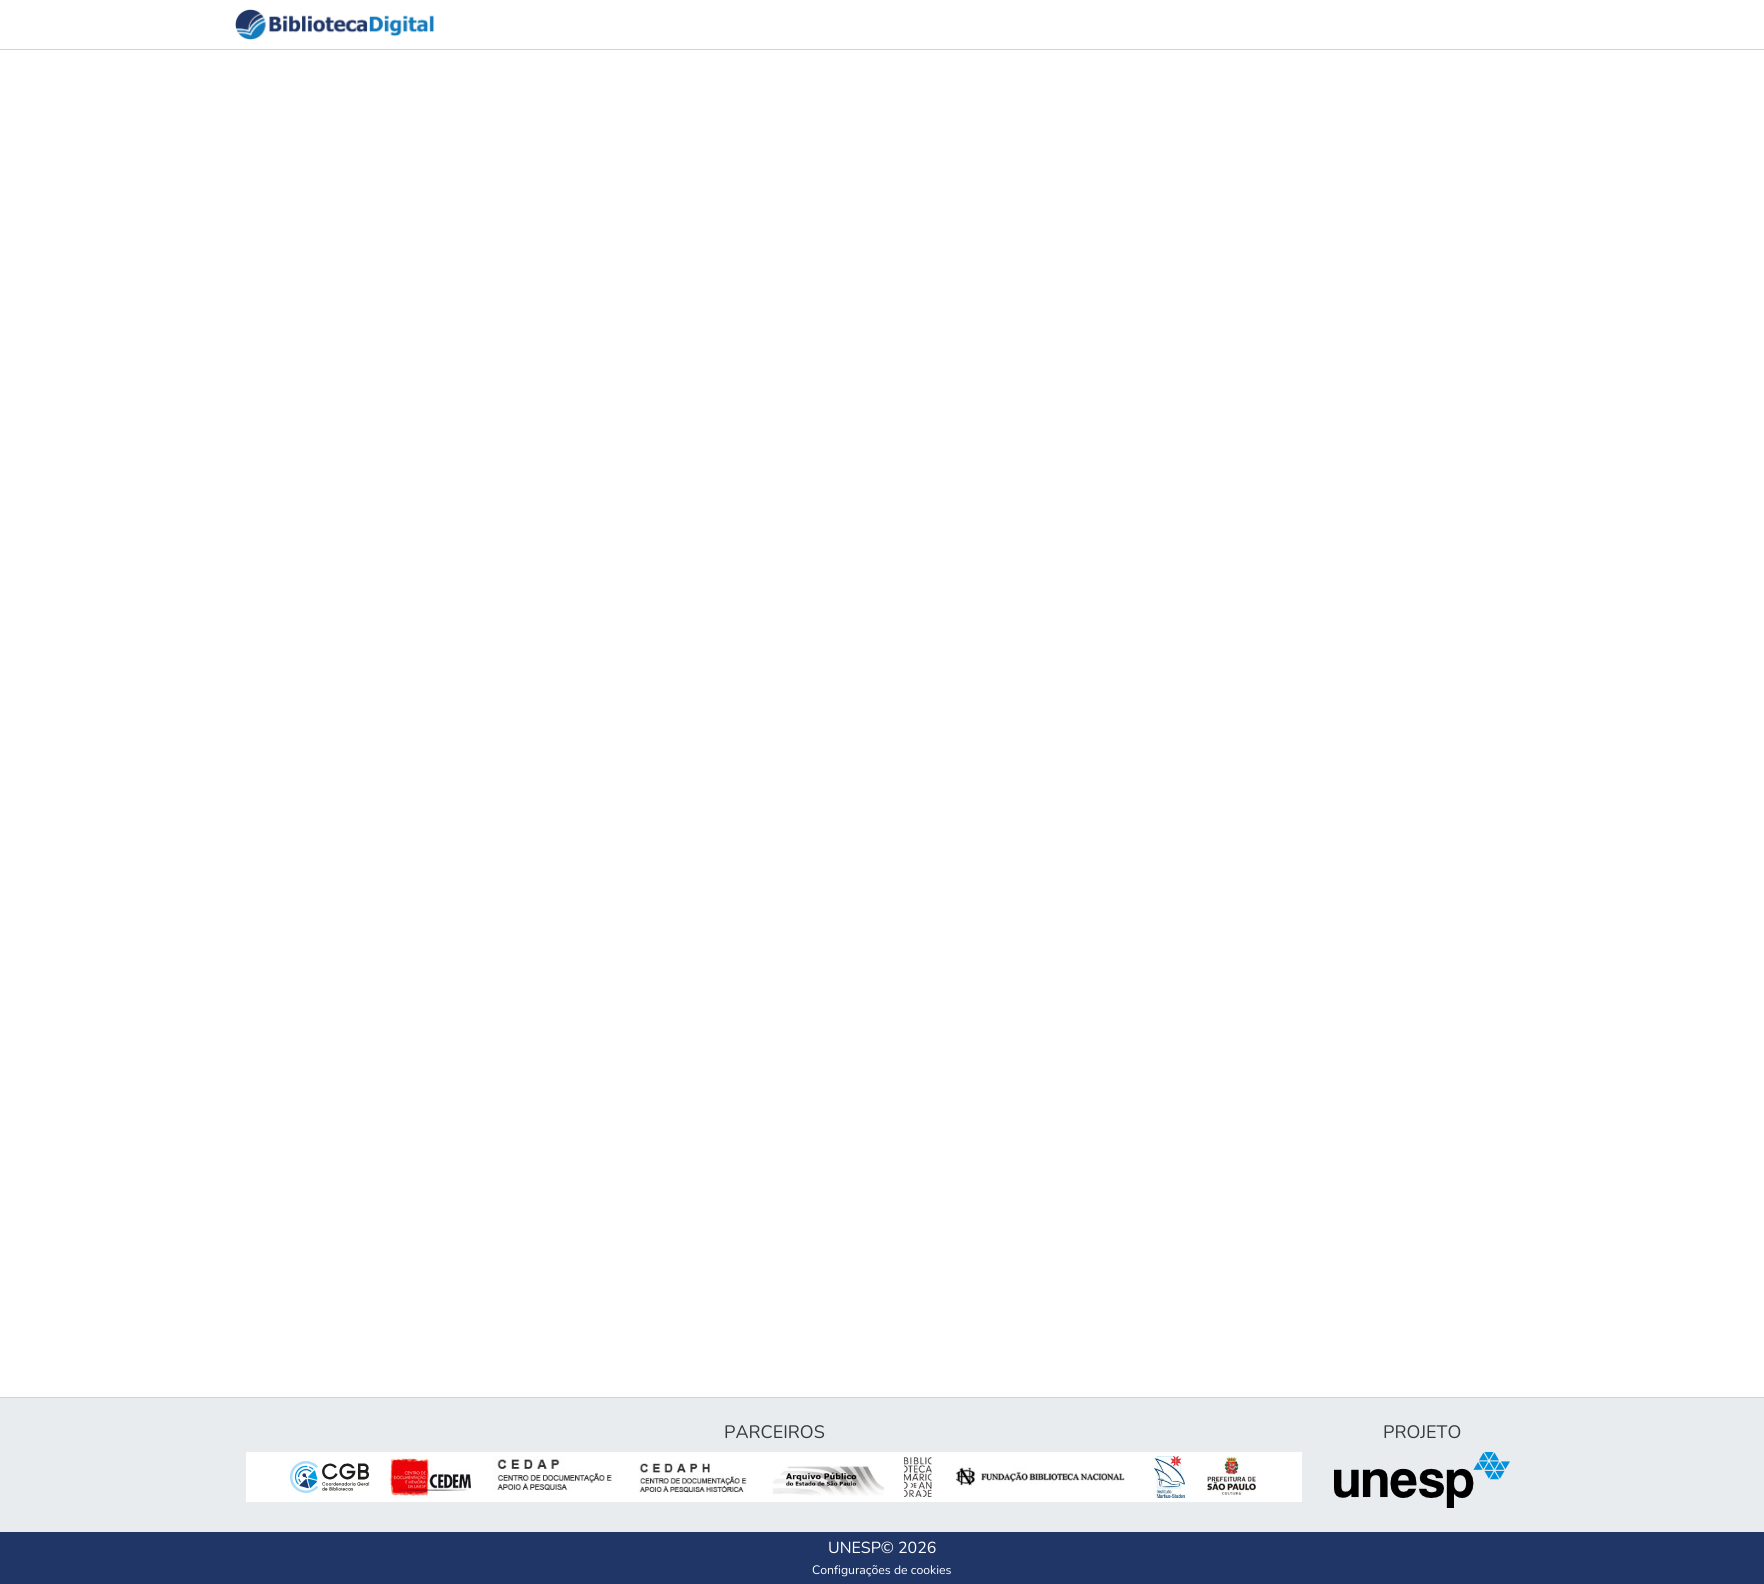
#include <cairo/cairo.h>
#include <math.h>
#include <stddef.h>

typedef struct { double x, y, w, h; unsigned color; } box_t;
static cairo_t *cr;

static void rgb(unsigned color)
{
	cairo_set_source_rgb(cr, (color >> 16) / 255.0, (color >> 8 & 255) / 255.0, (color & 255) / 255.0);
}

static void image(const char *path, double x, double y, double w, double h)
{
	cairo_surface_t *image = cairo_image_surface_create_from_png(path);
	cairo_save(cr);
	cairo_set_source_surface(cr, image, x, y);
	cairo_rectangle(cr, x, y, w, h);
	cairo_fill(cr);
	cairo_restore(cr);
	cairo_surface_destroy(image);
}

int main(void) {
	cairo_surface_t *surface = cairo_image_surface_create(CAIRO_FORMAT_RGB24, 1764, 1584);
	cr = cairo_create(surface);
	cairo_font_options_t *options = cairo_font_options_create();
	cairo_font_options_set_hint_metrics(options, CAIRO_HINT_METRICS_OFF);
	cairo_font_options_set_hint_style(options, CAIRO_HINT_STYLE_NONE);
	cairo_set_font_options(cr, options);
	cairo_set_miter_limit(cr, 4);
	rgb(0xffffff);
	cairo_paint(cr);
	rgb(0xced4da);
	cairo_rectangle(cr, 0, 49, 1764, 1);
	cairo_fill(cr);
	image("img/1.png", 235, 9, 200, 31);
	{
		static const box_t items[] = {
			{0, 1397, 1764, 1, 0xced4da},
			{0, 1398, 1764, 134, 0xe9ecef},
			{246, 1452, 1056, 50, 0xffffff},
		};
		for (size_t i = 0; i < sizeof items / sizeof *items; i++) {
			rgb(items[i].color);
			cairo_rectangle(cr, items[i].x, items[i].y, items[i].w, items[i].h);
			cairo_fill(cr);
		}
	}
	image("img/2.png", 290, 1461, 80, 32);
	image("img/3.png", 390, 1456, 81, 42);
	image("img/4.png", 493, 1456, 124, 35);
	image("img/5.png", 638, 1461, 109, 32);
	image("img/6.png", 772, 1465, 112, 31);
	image("img/7.png", 902, 1457, 30, 41);
	image("img/8.png", 955, 1467, 170, 19);
	image("img/9.png", 1154, 1456, 31, 42);
	image("img/10.png", 1207, 1456, 49, 40);
	image("img/11.png", 1334, 1452, 176, 56);
	rgb(0x1f3667);
	cairo_rectangle(cr, 0, 1532, 1764, 52);
	cairo_fill(cr);
	cairo_select_font_face(cr, "Nunito", CAIRO_FONT_SLANT_NORMAL, CAIRO_FONT_WEIGHT_NORMAL);
	cairo_set_font_size(cr, 18);
	rgb(0x343a40);
	cairo_move_to(cr, 724, 1438);
	cairo_show_text(cr, "PARCEIROS");
	cairo_move_to(cr, 1383, 1438);
	cairo_show_text(cr, "PROJETO");
	cairo_set_font_size(cr, 16);
	rgb(0xffffff);
	cairo_move_to(cr, 828, 1553);
	cairo_show_text(cr, "UNESP© 2026");
	cairo_set_font_size(cr, 12.25);
	cairo_move_to(cr, 812, 1574);
	cairo_show_text(cr, "Configurações de cookies");
	cairo_surface_write_to_png(surface, "page.png");
	cairo_font_options_destroy(options);
	cairo_destroy(cr);
	cairo_surface_destroy(surface);
	return 0;
}
